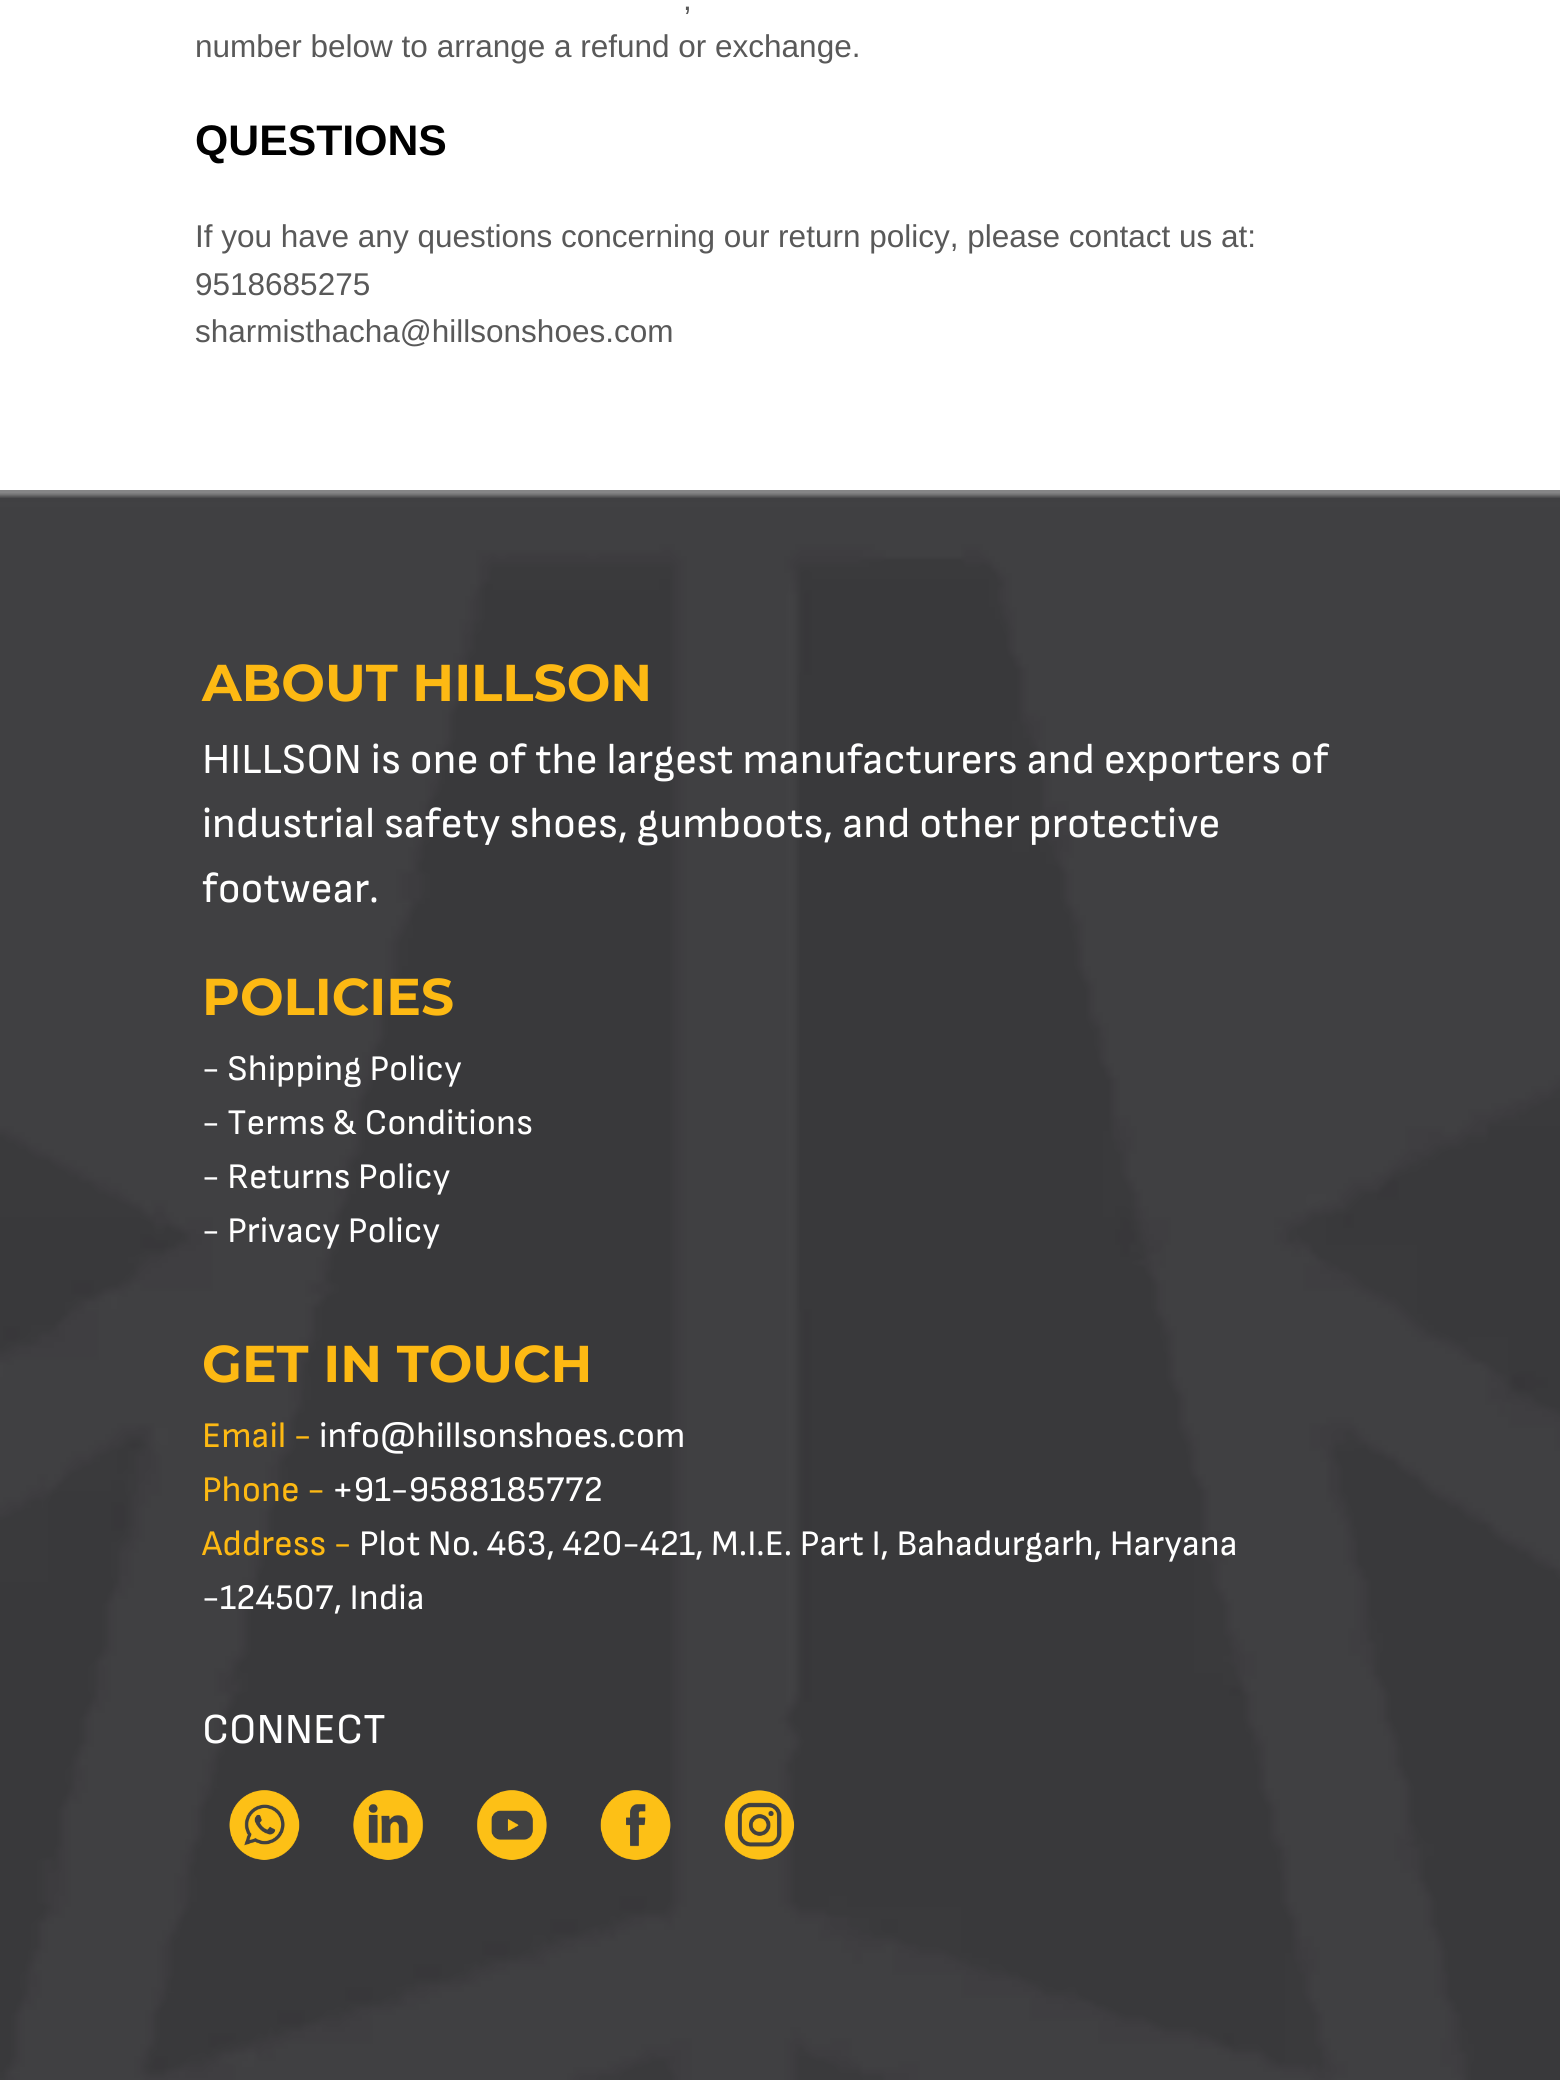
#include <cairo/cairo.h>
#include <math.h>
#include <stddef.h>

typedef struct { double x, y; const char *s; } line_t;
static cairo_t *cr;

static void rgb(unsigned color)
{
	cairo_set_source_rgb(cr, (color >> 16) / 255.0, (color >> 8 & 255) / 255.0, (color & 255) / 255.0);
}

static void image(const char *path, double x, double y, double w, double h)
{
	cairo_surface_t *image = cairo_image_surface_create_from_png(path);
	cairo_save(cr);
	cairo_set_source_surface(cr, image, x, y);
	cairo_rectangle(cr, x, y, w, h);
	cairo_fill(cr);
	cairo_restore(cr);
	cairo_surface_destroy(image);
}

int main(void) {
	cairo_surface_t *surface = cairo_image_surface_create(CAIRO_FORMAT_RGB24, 1560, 2080);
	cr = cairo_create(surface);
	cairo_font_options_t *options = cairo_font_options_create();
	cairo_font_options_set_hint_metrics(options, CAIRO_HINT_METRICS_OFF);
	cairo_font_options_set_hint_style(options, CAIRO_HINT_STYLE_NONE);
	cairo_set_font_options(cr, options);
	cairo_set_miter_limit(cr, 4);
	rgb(0xffffff);
	cairo_paint(cr);
	image("img/1.png", 0, 490, 1560, 1590);
	image("img/2.png", 229, 1790, 71, 70);
	image("img/3.png", 353, 1790, 71, 70);
	image("img/4.png", 477, 1790, 70, 70);
	image("img/5.png", 600, 1790, 71, 70);
	image("img/6.png", 724, 1790, 71, 70);
	cairo_select_font_face(cr, "Liberation Sans", CAIRO_FONT_SLANT_NORMAL, CAIRO_FONT_WEIGHT_NORMAL);
	cairo_set_font_size(cr, 31.5);
	rgb(0x595959);
	cairo_move_to(cr, 683, 10);
	cairo_show_text(cr, ",");
	cairo_move_to(cr, 195, 57);
	cairo_show_text(cr, "number below to arrange a refund or exchange.");
	cairo_select_font_face(cr, "Liberation Sans", CAIRO_FONT_SLANT_NORMAL, CAIRO_FONT_WEIGHT_BOLD);
	cairo_set_font_size(cr, 42.75);
	rgb(0x000000);
	cairo_move_to(cr, 195, 155);
	cairo_show_text(cr, "QUESTIONS");
	cairo_select_font_face(cr, "Liberation Sans", CAIRO_FONT_SLANT_NORMAL, CAIRO_FONT_WEIGHT_NORMAL);
	cairo_set_font_size(cr, 31.5);
	rgb(0x595959);
	{
		static const line_t items[] = {
			{195, 247, "If you have any questions concerning our return policy, please contact us at:"},
			{195, 295, "9518685275"},
			{195, 342, "sharmisthacha@hillsonshoes.com"},
		};
		for (size_t i = 0; i < sizeof items / sizeof *items; i++) {
			cairo_move_to(cr, items[i].x, items[i].y);
			cairo_show_text(cr, items[i].s);
		}
	}
	cairo_select_font_face(cr, "Montserrat", CAIRO_FONT_SLANT_NORMAL, CAIRO_FONT_WEIGHT_BOLD);
	cairo_set_font_size(cr, 51.75);
	rgb(0xfdb913);
	cairo_move_to(cr, 202, 701);
	cairo_show_text(cr, "ABOUT HILLSON");
	cairo_select_font_face(cr, "Sofia Sans", CAIRO_FONT_SLANT_NORMAL, CAIRO_FONT_WEIGHT_NORMAL);
	cairo_set_font_size(cr, 42.75);
	rgb(0xffffff);
	{
		static const line_t items[] = {
			{202, 773, "HILLSON is one of the largest manufacturers and exporters of"},
			{202, 837, "industrial safety shoes, gumboots, and other protective"},
			{202, 902, "footwear."},
		};
		for (size_t i = 0; i < sizeof items / sizeof *items; i++) {
			cairo_move_to(cr, items[i].x, items[i].y);
			cairo_show_text(cr, items[i].s);
		}
	}
	cairo_select_font_face(cr, "Montserrat", CAIRO_FONT_SLANT_NORMAL, CAIRO_FONT_WEIGHT_BOLD);
	cairo_set_font_size(cr, 51.75);
	rgb(0xfdb913);
	cairo_move_to(cr, 202, 1015);
	cairo_show_text(cr, "POLICIES");
	cairo_select_font_face(cr, "Sofia Sans", CAIRO_FONT_SLANT_NORMAL, CAIRO_FONT_WEIGHT_NORMAL);
	cairo_set_font_size(cr, 36);
	rgb(0xffffff);
	{
		static const line_t items[] = {
			{202, 1080, "- Shipping Policy"},
			{202, 1134, "- Terms & Conditions"},
			{202, 1188, "- Returns Policy"},
			{202, 1242, "- Privacy Policy"},
		};
		for (size_t i = 0; i < sizeof items / sizeof *items; i++) {
			cairo_move_to(cr, items[i].x, items[i].y);
			cairo_show_text(cr, items[i].s);
		}
	}
	cairo_select_font_face(cr, "Montserrat", CAIRO_FONT_SLANT_NORMAL, CAIRO_FONT_WEIGHT_BOLD);
	cairo_set_font_size(cr, 51.75);
	rgb(0xfdb913);
	cairo_move_to(cr, 202, 1382);
	cairo_show_text(cr, "GET IN TOUCH");
	cairo_select_font_face(cr, "Sofia Sans", CAIRO_FONT_SLANT_NORMAL, CAIRO_FONT_WEIGHT_NORMAL);
	cairo_set_font_size(cr, 36);
	cairo_move_to(cr, 202, 1447);
	cairo_show_text(cr, "Email -");
	rgb(0xffffff);
	cairo_move_to(cr, 319, 1447);
	cairo_show_text(cr, "info@hillsonshoes.com");
	rgb(0xfdb913);
	cairo_move_to(cr, 202, 1501);
	cairo_show_text(cr, "Phone -");
	rgb(0xffffff);
	cairo_move_to(cr, 332, 1501);
	cairo_show_text(cr, "+91-9588185772");
	rgb(0xfdb913);
	cairo_move_to(cr, 202, 1555);
	cairo_show_text(cr, "Address -");
	rgb(0xffffff);
	cairo_move_to(cr, 359, 1555);
	cairo_show_text(cr, "Plot No. 463, 420-421, M.I.E. Part I, Bahadurgarh, Haryana");
	cairo_move_to(cr, 202, 1609);
	cairo_show_text(cr, "-124507, India");
	cairo_set_font_size(cr, 42.75);
	cairo_move_to(cr, 202, 1743);
	cairo_show_text(cr, "CONNECT");
	cairo_surface_write_to_png(surface, "page.png");
	cairo_font_options_destroy(options);
	cairo_destroy(cr);
	cairo_surface_destroy(surface);
	return 0;
}
